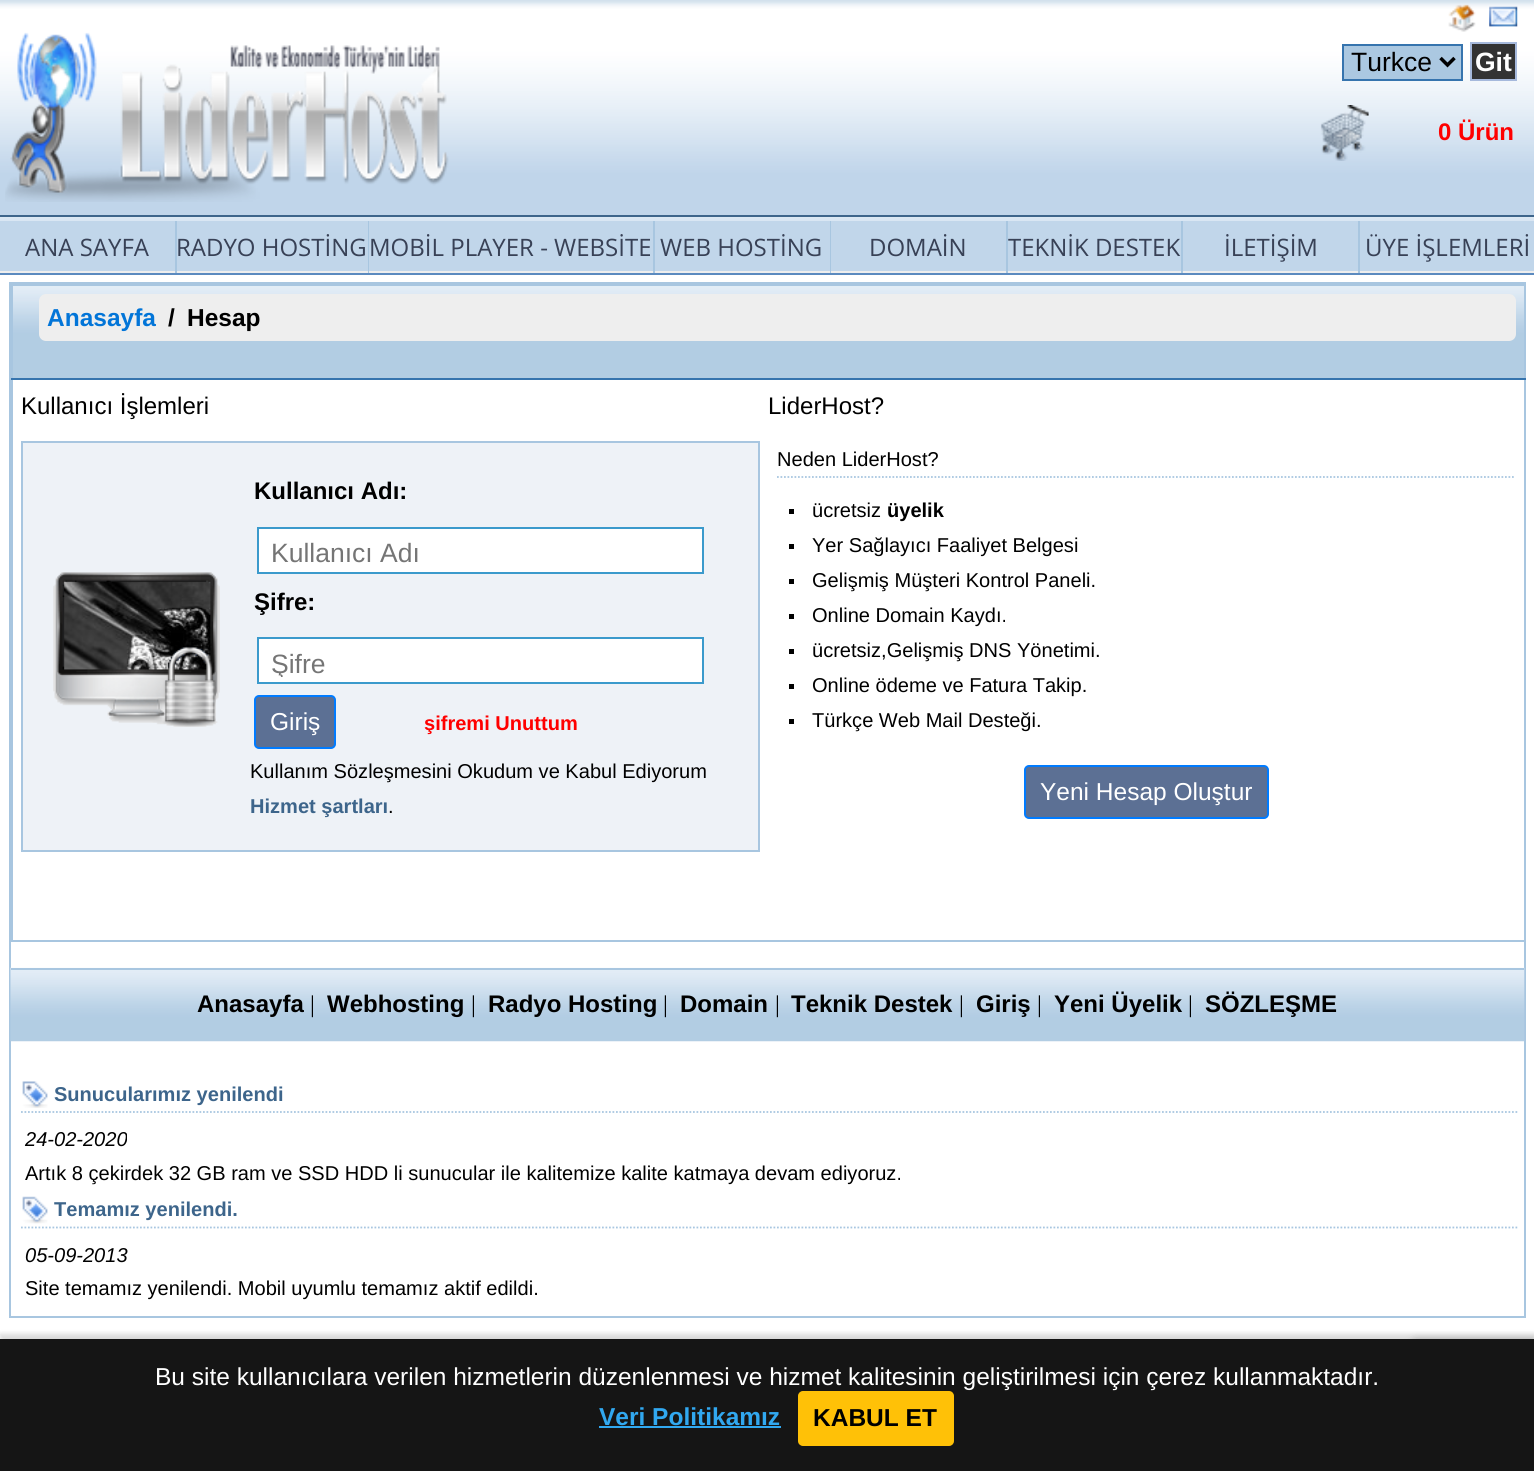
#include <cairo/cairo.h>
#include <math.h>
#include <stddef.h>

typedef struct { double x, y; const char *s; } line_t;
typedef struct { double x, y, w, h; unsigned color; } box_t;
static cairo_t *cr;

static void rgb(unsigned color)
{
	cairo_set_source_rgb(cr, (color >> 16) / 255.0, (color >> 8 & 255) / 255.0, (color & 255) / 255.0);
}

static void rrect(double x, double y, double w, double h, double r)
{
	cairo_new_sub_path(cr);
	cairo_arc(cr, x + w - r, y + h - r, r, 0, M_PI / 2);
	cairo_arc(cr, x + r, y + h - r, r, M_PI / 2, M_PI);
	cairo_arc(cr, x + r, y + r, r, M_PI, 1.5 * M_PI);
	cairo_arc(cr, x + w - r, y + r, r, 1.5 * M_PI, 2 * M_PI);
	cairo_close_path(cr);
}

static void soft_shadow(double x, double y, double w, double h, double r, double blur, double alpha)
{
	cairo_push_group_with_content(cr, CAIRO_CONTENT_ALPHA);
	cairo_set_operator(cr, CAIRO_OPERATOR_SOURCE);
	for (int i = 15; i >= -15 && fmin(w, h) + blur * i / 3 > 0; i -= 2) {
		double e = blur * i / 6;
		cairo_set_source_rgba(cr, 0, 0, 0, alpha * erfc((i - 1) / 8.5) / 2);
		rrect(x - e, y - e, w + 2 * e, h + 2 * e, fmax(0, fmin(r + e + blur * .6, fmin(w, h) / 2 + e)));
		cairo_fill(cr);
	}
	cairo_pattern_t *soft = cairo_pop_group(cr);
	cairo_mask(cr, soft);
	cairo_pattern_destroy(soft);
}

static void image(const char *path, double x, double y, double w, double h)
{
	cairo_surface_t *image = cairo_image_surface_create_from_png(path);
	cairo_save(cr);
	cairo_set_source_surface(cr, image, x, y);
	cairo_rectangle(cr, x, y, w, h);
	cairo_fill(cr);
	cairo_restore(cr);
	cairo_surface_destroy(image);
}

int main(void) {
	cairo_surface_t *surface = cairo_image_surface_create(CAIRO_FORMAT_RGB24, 1534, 1471);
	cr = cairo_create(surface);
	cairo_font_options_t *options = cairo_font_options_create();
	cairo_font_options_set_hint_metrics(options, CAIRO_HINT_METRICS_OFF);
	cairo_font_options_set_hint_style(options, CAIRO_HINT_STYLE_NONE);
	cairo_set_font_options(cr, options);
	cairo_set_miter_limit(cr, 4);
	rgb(0xffffff);
	cairo_paint(cr);
	image("img/1.png", 0, 0, 1534, 215);
	image("img/2.png", 5, 32, 444, 170);
	image("img/3.png", 1448, 4, 28, 28);
	image("img/4.png", 1489, 6, 29, 21);
	rgb(0xabc8e1);
	cairo_rectangle(cr, 1343, 45, 119, 35);
	cairo_fill_preserve(cr);
	rgb(0x3674ae);
	cairo_stroke(cr);
	cairo_new_path(cr);
	cairo_move_to(cr, 1440.5, 58);
	cairo_line_to(cr, 1447.5, 65);
	cairo_line_to(cr, 1454.5, 58);
	rgb(0x000000);
	cairo_set_line_width(cr, 3.5);
	cairo_stroke(cr);
	rgb(0x333333);
	cairo_rectangle(cr, 1471, 43, 45, 37);
	cairo_fill_preserve(cr);
	rgb(0xa6b9dc);
	cairo_set_line_width(cr, 2);
	cairo_stroke(cr);
	image("img/5.png", 1320, 105, 49, 56);
	image("img/6.png", 0, 217, 1534, 4);
	{
		static const box_t items[] = {
			{0, 215, 1534, 2, 0x3d658b},
			{0, 273, 1534, 2, 0x5b8abf},
			{175, 221, 2, 52, 0xa8c6e0},
			{0, 221, 175, 50, 0xc1d6ea},
			{0, 271, 175, 2, 0xeeeeee},
			{368, 221, 1, 52, 0xa8c6e0},
			{177, 221, 191, 50, 0xc1d6ea},
			{177, 271, 191, 2, 0xeeeeee},
			{653, 221, 2, 52, 0xa8c6e0},
			{369, 221, 284, 50, 0xc1d6ea},
			{369, 271, 284, 2, 0xeeeeee},
			{830, 221, 1, 52, 0xa8c6e0},
			{655, 221, 175, 50, 0xc1d6ea},
			{655, 271, 175, 2, 0xeeeeee},
			{1006, 221, 2, 52, 0xa8c6e0},
			{831, 221, 175, 50, 0xc1d6ea},
			{831, 271, 175, 2, 0xeeeeee},
			{1181, 221, 2, 52, 0xa8c6e0},
			{1008, 221, 173, 50, 0xc1d6ea},
			{1008, 271, 173, 2, 0xeeeeee},
			{1358, 221, 2, 52, 0xa8c6e0},
			{1183, 221, 175, 50, 0xc1d6ea},
			{1183, 271, 175, 2, 0xeeeeee},
			{1360, 221, 174, 50, 0xc1d6ea},
			{1360, 271, 174, 2, 0xeeeeee},
		};
		for (size_t i = 0; i < sizeof items / sizeof *items; i++) {
			rgb(items[i].color);
			cairo_rectangle(cr, items[i].x, items[i].y, items[i].w, items[i].h);
			cairo_fill(cr);
		}
	}
	cairo_rectangle(cr, 10, 283, 1515, 1034);
	rgb(0xa8c6e0);
	cairo_stroke(cr);
	{
		static const box_t items[] = {
			{11, 284, 1515, 2, 0xa8c6e0},
			{11, 940, 1515, 2, 0xa8c6e0},
			{11, 284, 2, 658, 0xa8c6e0},
		};
		for (size_t i = 0; i < sizeof items / sizeof *items; i++) {
			rgb(items[i].color);
			cairo_rectangle(cr, items[i].x, items[i].y, items[i].w, items[i].h);
			cairo_fill(cr);
		}
	}
	image("img/7.png", 13, 286, 1511, 92);
	rgb(0x3674ae);
	cairo_rectangle(cr, 11, 378, 1515, 2);
	cairo_fill(cr);
	rgb(0xeeeeee);
	rrect(39, 294, 1477, 47, 7);
	cairo_fill(cr);
	rgb(0xeef2f7);
	cairo_rectangle(cr, 23, 443, 735, 407);
	cairo_fill(cr);
	image("img/8.png", 53, 572, 167, 155);
	cairo_rectangle(cr, 22, 442, 737, 409);
	rgb(0xa8c6e0);
	cairo_stroke(cr);
	rgb(0xffffff);
	cairo_rectangle(cr, 258, 528, 445, 45);
	cairo_fill_preserve(cr);
	rgb(0x3b9acc);
	cairo_stroke(cr);
	rgb(0xffffff);
	cairo_rectangle(cr, 258, 638, 445, 45);
	cairo_fill_preserve(cr);
	rgb(0x3b9acc);
	cairo_stroke(cr);
	rgb(0x5c7094);
	rrect(255, 696, 80, 52, 4);
	cairo_fill_preserve(cr);
	rgb(0x007bff);
	cairo_stroke(cr);
	cairo_new_path(cr);
	cairo_move_to(cr, 777, 477);
	cairo_line_to(cr, 1515.5, 477);
	rgb(0xa8c6e0);
	cairo_set_line_width(cr, 1.8);
	cairo_set_dash(cr, (double[]){1.75, 1.75}, 2, 0);
	cairo_stroke(cr);
	{
		static const box_t items[] = {
			{789, 509, 5, 5, 0x000000},
			{789, 544, 5, 5, 0x000000},
			{789, 579, 5, 5, 0x000000},
			{789, 614, 5, 5, 0x000000},
			{789, 649, 5, 5, 0x000000},
			{789, 684, 5, 5, 0x000000},
			{789, 719, 5, 5, 0x000000},
		};
		for (size_t i = 0; i < sizeof items / sizeof *items; i++) {
			rgb(items[i].color);
			cairo_rectangle(cr, items[i].x, items[i].y, items[i].w, items[i].h);
			cairo_fill(cr);
		}
	}
	rgb(0x5c7094);
	rrect(1025, 766, 243, 52, 4);
	cairo_fill_preserve(cr);
	rgb(0x007bff);
	cairo_set_line_width(cr, 2);
	cairo_set_dash(cr, NULL, 0, 0);
	cairo_stroke(cr);
	image("img/9.png", 10, 967, 1515, 75);
	rgb(0xa8c6e0);
	cairo_rectangle(cr, 11, 968, 1513, 2);
	cairo_fill(cr);
	image("img/10.png", 22, 1081, 26, 27);
	cairo_new_path(cr);
	cairo_move_to(cr, 21, 1112);
	cairo_line_to(cr, 1519, 1112);
	cairo_set_line_width(cr, 1.8);
	cairo_set_dash(cr, (double[]){1.75, 1.75}, 2, 0);
	cairo_stroke(cr);
	image("img/11.png", 22, 1196, 26, 28);
	cairo_new_path(cr);
	cairo_move_to(cr, 21, 1227.5);
	cairo_line_to(cr, 1519, 1227.5);
	cairo_stroke(cr);
	rgb(0x000000);
	soft_shadow(0, 1334, 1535, 133, 0, 2.5, 0.15);
	rgb(0x808080);
	soft_shadow(1412, 1342, 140, 105, 4, 4.5, 1);
	rgb(0x151515);
	cairo_rectangle(cr, 0, 1339, 1534, 132);
	cairo_fill(cr);
	rgb(0x31a8f0);
	cairo_rectangle(cr, 599, 1426, 182, 2);
	cairo_fill(cr);
	rgb(0xffc107);
	rrect(799, 1392, 154, 53, 4);
	cairo_fill_preserve(cr);
	cairo_set_line_width(cr, 2);
	cairo_set_dash(cr, NULL, 0, 0);
	cairo_stroke(cr);
	cairo_select_font_face(cr, "Liberation Sans", CAIRO_FONT_SLANT_NORMAL, CAIRO_FONT_WEIGHT_NORMAL);
	cairo_set_font_size(cr, 26.5);
	rgb(0x000000);
	cairo_move_to(cr, 1351, 71);
	cairo_show_text(cr, "Turkce");
	cairo_select_font_face(cr, "Liberation Sans", CAIRO_FONT_SLANT_NORMAL, CAIRO_FONT_WEIGHT_BOLD);
	rgb(0xffffff);
	cairo_move_to(cr, 1475, 71);
	cairo_show_text(cr, "Git");
	cairo_set_font_size(cr, 24);
	rgb(0xff0000);
	cairo_move_to(cr, 1438, 140);
	cairo_show_text(cr, "0 Ürün");
	cairo_select_font_face(cr, "Open Sans", CAIRO_FONT_SLANT_NORMAL, CAIRO_FONT_WEIGHT_NORMAL);
	rgb(0x384156);
	{
		static const line_t items[] = {
			{25, 256, "ANA SAYFA"},
			{176, 256, "RADYO HOSTİNG"},
			{369, 256, "MOBİL PLAYER - WEBSİTE"},
			{660, 256, "WEB HOSTİNG"},
			{869, 256, "DOMAİN"},
			{1008, 256, "TEKNİK DESTEK"},
			{1224, 256, "İLETİŞİM"},
			{1365, 256, "ÜYE İŞLEMLERİ"},
		};
		for (size_t i = 0; i < sizeof items / sizeof *items; i++) {
			cairo_move_to(cr, items[i].x, items[i].y);
			cairo_show_text(cr, items[i].s);
		}
	}
	cairo_select_font_face(cr, "Liberation Sans", CAIRO_FONT_SLANT_NORMAL, CAIRO_FONT_WEIGHT_BOLD);
	cairo_set_font_size(cr, 24.5);
	rgb(0x0275d8);
	cairo_move_to(cr, 47, 326);
	cairo_show_text(cr, "Anasayfa");
	rgb(0x000000);
	cairo_move_to(cr, 168, 326);
	cairo_show_text(cr, "/");
	cairo_move_to(cr, 187, 326);
	cairo_show_text(cr, "Hesap");
	cairo_select_font_face(cr, "Liberation Sans", CAIRO_FONT_SLANT_NORMAL, CAIRO_FONT_WEIGHT_NORMAL);
	cairo_set_font_size(cr, 24);
	cairo_move_to(cr, 21, 414);
	cairo_show_text(cr, "Kullanıcı İşlemleri");
	cairo_move_to(cr, 768, 414);
	cairo_show_text(cr, "LiderHost?");
	cairo_select_font_face(cr, "Liberation Sans", CAIRO_FONT_SLANT_NORMAL, CAIRO_FONT_WEIGHT_BOLD);
	cairo_move_to(cr, 254, 499);
	cairo_show_text(cr, "Kullanıcı Adı:");
	cairo_select_font_face(cr, "Liberation Sans", CAIRO_FONT_SLANT_NORMAL, CAIRO_FONT_WEIGHT_NORMAL);
	cairo_set_font_size(cr, 26.5);
	rgb(0x757575);
	cairo_move_to(cr, 271, 562);
	cairo_show_text(cr, "Kullanıcı Adı");
	cairo_select_font_face(cr, "Liberation Sans", CAIRO_FONT_SLANT_NORMAL, CAIRO_FONT_WEIGHT_BOLD);
	cairo_set_font_size(cr, 24);
	rgb(0x000000);
	cairo_move_to(cr, 254, 610);
	cairo_show_text(cr, "Şifre:");
	cairo_save(cr);
	cairo_rectangle(cr, 271, 648, 426, 29);
	cairo_clip(cr);
	cairo_select_font_face(cr, "Liberation Sans", CAIRO_FONT_SLANT_NORMAL, CAIRO_FONT_WEIGHT_NORMAL);
	cairo_set_font_size(cr, 26.5);
	rgb(0x757575);
	cairo_move_to(cr, 271, 673);
	cairo_show_text(cr, "Şifre");
	cairo_restore(cr);
	cairo_select_font_face(cr, "Liberation Sans", CAIRO_FONT_SLANT_NORMAL, CAIRO_FONT_WEIGHT_NORMAL);
	cairo_set_font_size(cr, 24.5);
	rgb(0xffffff);
	cairo_move_to(cr, 270, 730);
	cairo_show_text(cr, "Giriş");
	cairo_select_font_face(cr, "Liberation Sans", CAIRO_FONT_SLANT_NORMAL, CAIRO_FONT_WEIGHT_BOLD);
	cairo_set_font_size(cr, 20.05);
	rgb(0xff0000);
	cairo_move_to(cr, 424, 730);
	cairo_show_text(cr, "şifremi Unuttum");
	cairo_select_font_face(cr, "Liberation Sans", CAIRO_FONT_SLANT_NORMAL, CAIRO_FONT_WEIGHT_NORMAL);
	rgb(0x000000);
	cairo_move_to(cr, 250, 778);
	cairo_show_text(cr, "Kullanım Sözleşmesini Okudum ve Kabul Ediyorum");
	cairo_select_font_face(cr, "Liberation Sans", CAIRO_FONT_SLANT_NORMAL, CAIRO_FONT_WEIGHT_BOLD);
	rgb(0x3d658b);
	cairo_move_to(cr, 250, 813);
	cairo_show_text(cr, "Hizmet şartları");
	cairo_select_font_face(cr, "Liberation Sans", CAIRO_FONT_SLANT_NORMAL, CAIRO_FONT_WEIGHT_NORMAL);
	rgb(0x000000);
	{
		static const line_t items[] = {
			{388, 813, "."},
			{777, 466, "Neden LiderHost?"},
			{812, 517, "ücretsiz"},
		};
		for (size_t i = 0; i < sizeof items / sizeof *items; i++) {
			cairo_move_to(cr, items[i].x, items[i].y);
			cairo_show_text(cr, items[i].s);
		}
	}
	cairo_select_font_face(cr, "Liberation Sans", CAIRO_FONT_SLANT_NORMAL, CAIRO_FONT_WEIGHT_BOLD);
	cairo_move_to(cr, 887, 517);
	cairo_show_text(cr, "üyelik");
	cairo_select_font_face(cr, "Liberation Sans", CAIRO_FONT_SLANT_NORMAL, CAIRO_FONT_WEIGHT_NORMAL);
	{
		static const line_t items[] = {
			{812, 552, "Yer Sağlayıcı Faaliyet Belgesi"},
			{812, 587, "Gelişmiş Müşteri Kontrol Paneli."},
			{812, 622, "Online Domain Kaydı."},
			{812, 657, "ücretsiz,Gelişmiş DNS Yönetimi."},
			{812, 692, "Online ödeme ve Fatura Takip."},
			{812, 727, "Türkçe Web Mail Desteği."},
		};
		for (size_t i = 0; i < sizeof items / sizeof *items; i++) {
			cairo_move_to(cr, items[i].x, items[i].y);
			cairo_show_text(cr, items[i].s);
		}
	}
	cairo_set_font_size(cr, 24.5);
	rgb(0xffffff);
	cairo_move_to(cr, 1040, 800);
	cairo_show_text(cr, "Yeni Hesap Oluştur");
	cairo_select_font_face(cr, "Liberation Sans", CAIRO_FONT_SLANT_NORMAL, CAIRO_FONT_WEIGHT_BOLD);
	cairo_set_font_size(cr, 24);
	rgb(0x000000);
	cairo_move_to(cr, 197, 1012);
	cairo_show_text(cr, "Anasayfa");
	cairo_select_font_face(cr, "Liberation Serif", CAIRO_FONT_SLANT_NORMAL, CAIRO_FONT_WEIGHT_NORMAL);
	cairo_move_to(cr, 310, 1012);
	cairo_show_text(cr, "|");
	cairo_select_font_face(cr, "Liberation Sans", CAIRO_FONT_SLANT_NORMAL, CAIRO_FONT_WEIGHT_BOLD);
	cairo_move_to(cr, 327, 1012);
	cairo_show_text(cr, "Webhosting");
	cairo_select_font_face(cr, "Liberation Serif", CAIRO_FONT_SLANT_NORMAL, CAIRO_FONT_WEIGHT_NORMAL);
	cairo_move_to(cr, 471, 1012);
	cairo_show_text(cr, "|");
	cairo_select_font_face(cr, "Liberation Sans", CAIRO_FONT_SLANT_NORMAL, CAIRO_FONT_WEIGHT_BOLD);
	cairo_move_to(cr, 488, 1012);
	cairo_show_text(cr, "Radyo Hosting");
	cairo_select_font_face(cr, "Liberation Serif", CAIRO_FONT_SLANT_NORMAL, CAIRO_FONT_WEIGHT_NORMAL);
	cairo_move_to(cr, 663, 1012);
	cairo_show_text(cr, "|");
	cairo_select_font_face(cr, "Liberation Sans", CAIRO_FONT_SLANT_NORMAL, CAIRO_FONT_WEIGHT_BOLD);
	cairo_move_to(cr, 680, 1012);
	cairo_show_text(cr, "Domain");
	cairo_select_font_face(cr, "Liberation Serif", CAIRO_FONT_SLANT_NORMAL, CAIRO_FONT_WEIGHT_NORMAL);
	cairo_move_to(cr, 775, 1012);
	cairo_show_text(cr, "|");
	cairo_select_font_face(cr, "Liberation Sans", CAIRO_FONT_SLANT_NORMAL, CAIRO_FONT_WEIGHT_BOLD);
	cairo_move_to(cr, 791, 1012);
	cairo_show_text(cr, "Teknik Destek");
	cairo_select_font_face(cr, "Liberation Serif", CAIRO_FONT_SLANT_NORMAL, CAIRO_FONT_WEIGHT_NORMAL);
	cairo_move_to(cr, 959, 1012);
	cairo_show_text(cr, "|");
	cairo_select_font_face(cr, "Liberation Sans", CAIRO_FONT_SLANT_NORMAL, CAIRO_FONT_WEIGHT_BOLD);
	cairo_move_to(cr, 976, 1012);
	cairo_show_text(cr, "Giriş");
	cairo_select_font_face(cr, "Liberation Serif", CAIRO_FONT_SLANT_NORMAL, CAIRO_FONT_WEIGHT_NORMAL);
	cairo_move_to(cr, 1037, 1012);
	cairo_show_text(cr, "|");
	cairo_select_font_face(cr, "Liberation Sans", CAIRO_FONT_SLANT_NORMAL, CAIRO_FONT_WEIGHT_BOLD);
	cairo_move_to(cr, 1054, 1012);
	cairo_show_text(cr, "Yeni Üyelik");
	cairo_select_font_face(cr, "Liberation Serif", CAIRO_FONT_SLANT_NORMAL, CAIRO_FONT_WEIGHT_NORMAL);
	cairo_move_to(cr, 1188, 1012);
	cairo_show_text(cr, "|");
	cairo_select_font_face(cr, "Liberation Sans", CAIRO_FONT_SLANT_NORMAL, CAIRO_FONT_WEIGHT_BOLD);
	cairo_move_to(cr, 1205, 1012);
	cairo_show_text(cr, "SÖZLEŞME");
	cairo_set_font_size(cr, 20.05);
	rgb(0x3d658b);
	cairo_move_to(cr, 54, 1101);
	cairo_show_text(cr, "Sunucularımız yenilendi");
	cairo_select_font_face(cr, "Liberation Sans", CAIRO_FONT_SLANT_ITALIC, CAIRO_FONT_WEIGHT_NORMAL);
	rgb(0x000000);
	cairo_move_to(cr, 25, 1146);
	cairo_show_text(cr, "24-02-2020");
	cairo_select_font_face(cr, "Liberation Sans", CAIRO_FONT_SLANT_NORMAL, CAIRO_FONT_WEIGHT_NORMAL);
	cairo_move_to(cr, 25, 1180);
	cairo_show_text(cr, "Artık 8 çekirdek 32 GB ram ve SSD HDD li sunucular ile kalitemize kalite katmaya devam ediyoruz.");
	cairo_select_font_face(cr, "Liberation Sans", CAIRO_FONT_SLANT_NORMAL, CAIRO_FONT_WEIGHT_BOLD);
	rgb(0x3d658b);
	cairo_move_to(cr, 54, 1216);
	cairo_show_text(cr, "Temamız yenilendi.");
	cairo_select_font_face(cr, "Liberation Sans", CAIRO_FONT_SLANT_ITALIC, CAIRO_FONT_WEIGHT_NORMAL);
	rgb(0x000000);
	cairo_move_to(cr, 25, 1262);
	cairo_show_text(cr, "05-09-2013");
	cairo_select_font_face(cr, "Liberation Sans", CAIRO_FONT_SLANT_NORMAL, CAIRO_FONT_WEIGHT_NORMAL);
	cairo_move_to(cr, 25, 1295);
	cairo_show_text(cr, "Site temamız yenilendi. Mobil uyumlu temamız aktif edildi.");
	cairo_set_font_size(cr, 24.5);
	rgb(0xffffff);
	cairo_move_to(cr, 155, 1385);
	cairo_show_text(cr, "Bu site kullanıcılara verilen hizmetlerin düzenlenmesi ve hizmet kalitesinin geliştirilmesi için çerez kullanmaktadır.");
	cairo_select_font_face(cr, "Liberation Sans", CAIRO_FONT_SLANT_NORMAL, CAIRO_FONT_WEIGHT_BOLD);
	rgb(0x31a8f0);
	cairo_move_to(cr, 599, 1425);
	cairo_show_text(cr, "Veri Politikamız");
	rgb(0x000000);
	cairo_move_to(cr, 813, 1426);
	cairo_show_text(cr, "KABUL ET");
	cairo_surface_write_to_png(surface, "page.png");
	cairo_font_options_destroy(options);
	cairo_destroy(cr);
	cairo_surface_destroy(surface);
	return 0;
}
